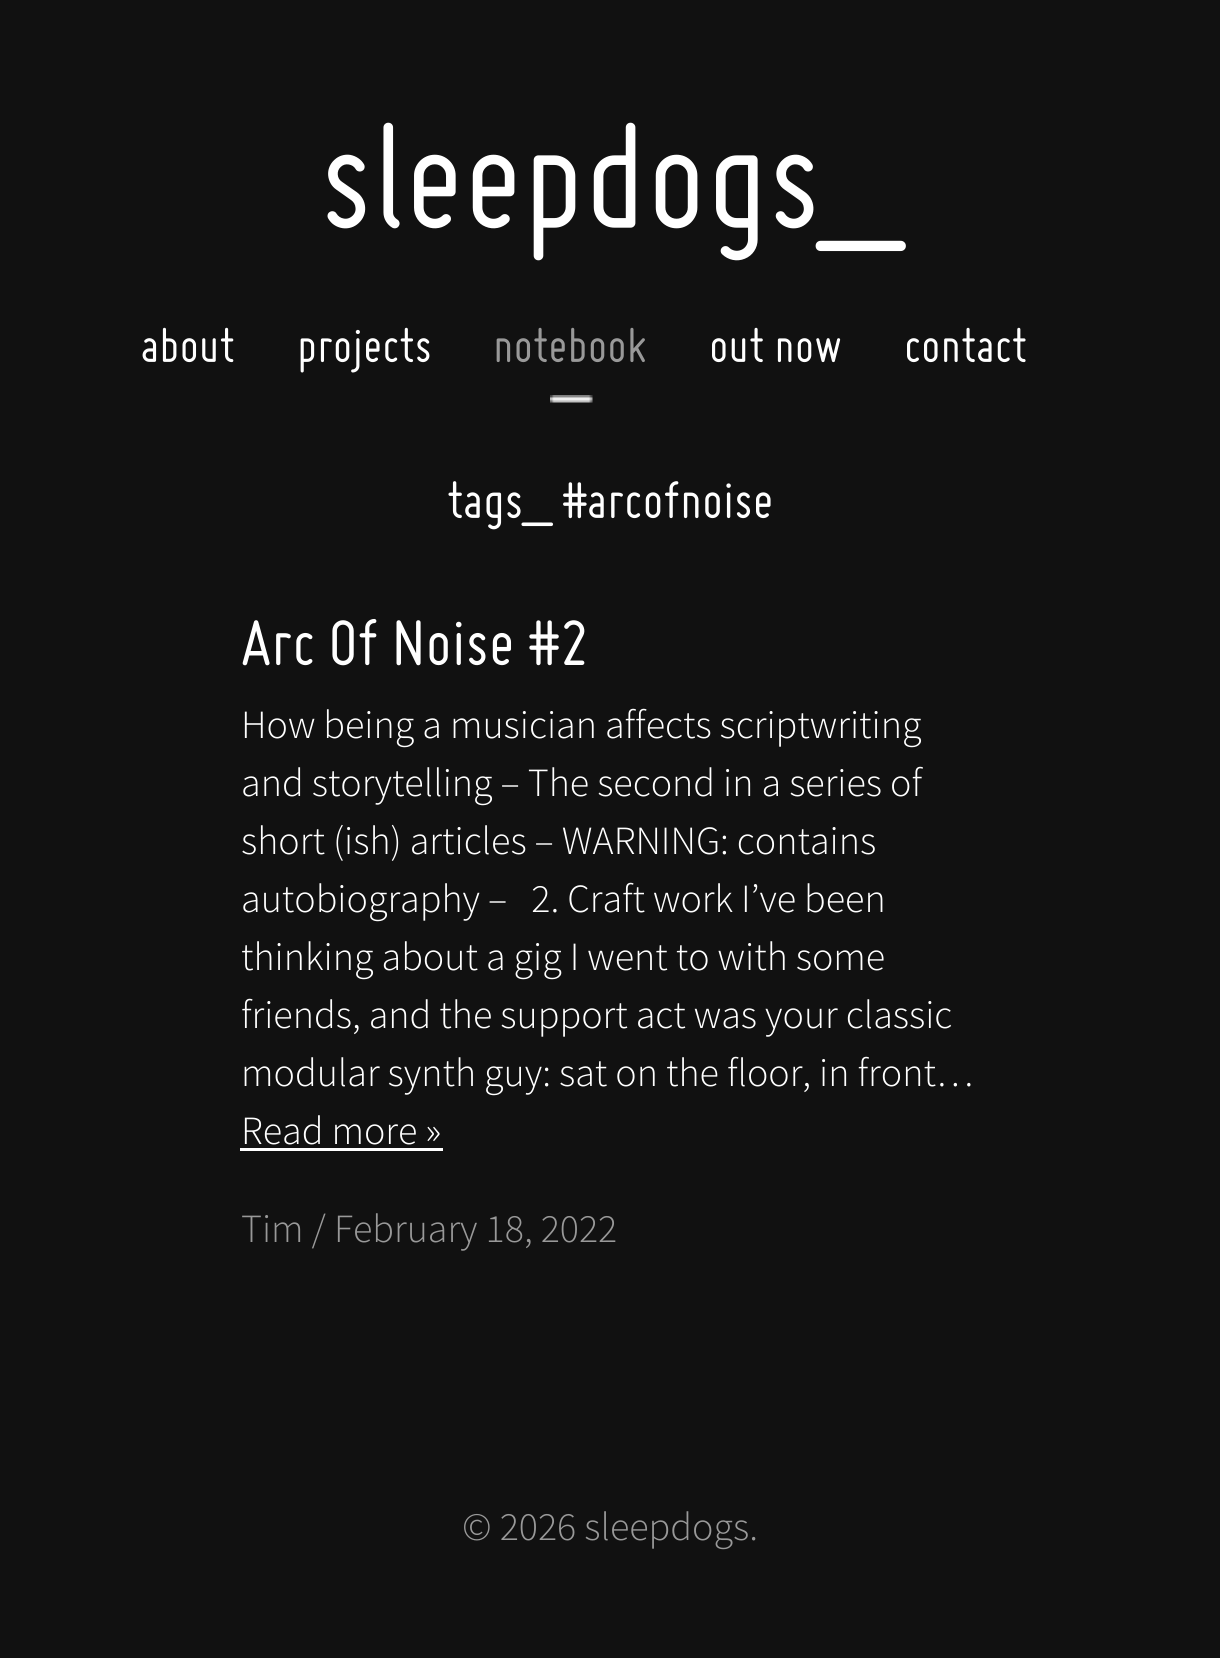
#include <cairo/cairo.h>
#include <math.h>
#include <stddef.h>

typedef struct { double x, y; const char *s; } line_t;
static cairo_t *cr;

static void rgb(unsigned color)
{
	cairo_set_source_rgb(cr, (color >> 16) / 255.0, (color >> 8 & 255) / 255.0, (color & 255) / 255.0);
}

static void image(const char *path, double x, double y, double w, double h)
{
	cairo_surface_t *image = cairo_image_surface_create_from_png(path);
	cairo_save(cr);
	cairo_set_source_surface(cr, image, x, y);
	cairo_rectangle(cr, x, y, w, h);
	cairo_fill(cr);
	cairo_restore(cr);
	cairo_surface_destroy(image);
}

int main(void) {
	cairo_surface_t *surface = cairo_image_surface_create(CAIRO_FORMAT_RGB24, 1220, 1658);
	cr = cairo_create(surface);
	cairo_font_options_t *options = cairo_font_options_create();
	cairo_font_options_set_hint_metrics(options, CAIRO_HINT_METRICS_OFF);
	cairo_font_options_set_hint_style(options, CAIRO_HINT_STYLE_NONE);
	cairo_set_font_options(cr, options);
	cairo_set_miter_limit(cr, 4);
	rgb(0x111111);
	cairo_paint(cr);
	image("img/1.png", 550, 395, 43, 8);
	rgb(0xffffff);
	cairo_rectangle(cr, 240, 1148, 203, 3);
	cairo_fill(cr);
	cairo_select_font_face(cr, "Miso", CAIRO_FONT_SLANT_NORMAL, CAIRO_FONT_WEIGHT_NORMAL);
	cairo_set_font_size(cr, 160);
	cairo_move_to(cr, 320, 228);
	cairo_show_text(cr, "sleepdogs_");
	cairo_set_font_size(cr, 52);
	cairo_move_to(cr, 141, 362);
	cairo_show_text(cr, "about");
	cairo_move_to(cr, 297, 362);
	cairo_show_text(cr, "projects");
	rgb(0x999999);
	cairo_move_to(cr, 493, 362);
	cairo_show_text(cr, "notebook");
	rgb(0xffffff);
	cairo_move_to(cr, 709, 362);
	cairo_show_text(cr, "out now");
	cairo_move_to(cr, 904, 362);
	cairo_show_text(cr, "contact");
	cairo_set_font_size(cr, 56);
	cairo_move_to(cr, 447, 518);
	cairo_show_text(cr, "tags_ #arcofnoise");
	cairo_set_font_size(cr, 70);
	cairo_move_to(cr, 241, 665);
	cairo_show_text(cr, "Arc Of Noise #2");
	cairo_select_font_face(cr, "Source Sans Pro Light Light", CAIRO_FONT_SLANT_NORMAL, CAIRO_FONT_WEIGHT_NORMAL);
	cairo_set_font_size(cr, 40);
	{
		static const line_t items[] = {
			{241, 738, "How being a musician affects scriptwriting"},
			{241, 796, "and storytelling – The second in a series of"},
			{241, 854, "short (ish) articles – WARNING: contains"},
			{241, 912, "autobiography –   2. Craft work I’ve been"},
			{241, 970, "thinking about a gig I went to with some"},
			{241, 1028, "friends, and the support act was your classic"},
			{241, 1086, "modular synth guy: sat on the floor, in front…"},
			{241, 1144, "Read more »"},
		};
		for (size_t i = 0; i < sizeof items / sizeof *items; i++) {
			cairo_move_to(cr, items[i].x, items[i].y);
			cairo_show_text(cr, items[i].s);
		}
	}
	rgb(0x999999);
	cairo_move_to(cr, 241, 1242);
	cairo_show_text(cr, "Tim / February 18, 2022");
	cairo_move_to(cr, 462, 1540);
	cairo_show_text(cr, "© 2026 sleepdogs.");
	cairo_surface_write_to_png(surface, "page.png");
	cairo_font_options_destroy(options);
	cairo_destroy(cr);
	cairo_surface_destroy(surface);
	return 0;
}
